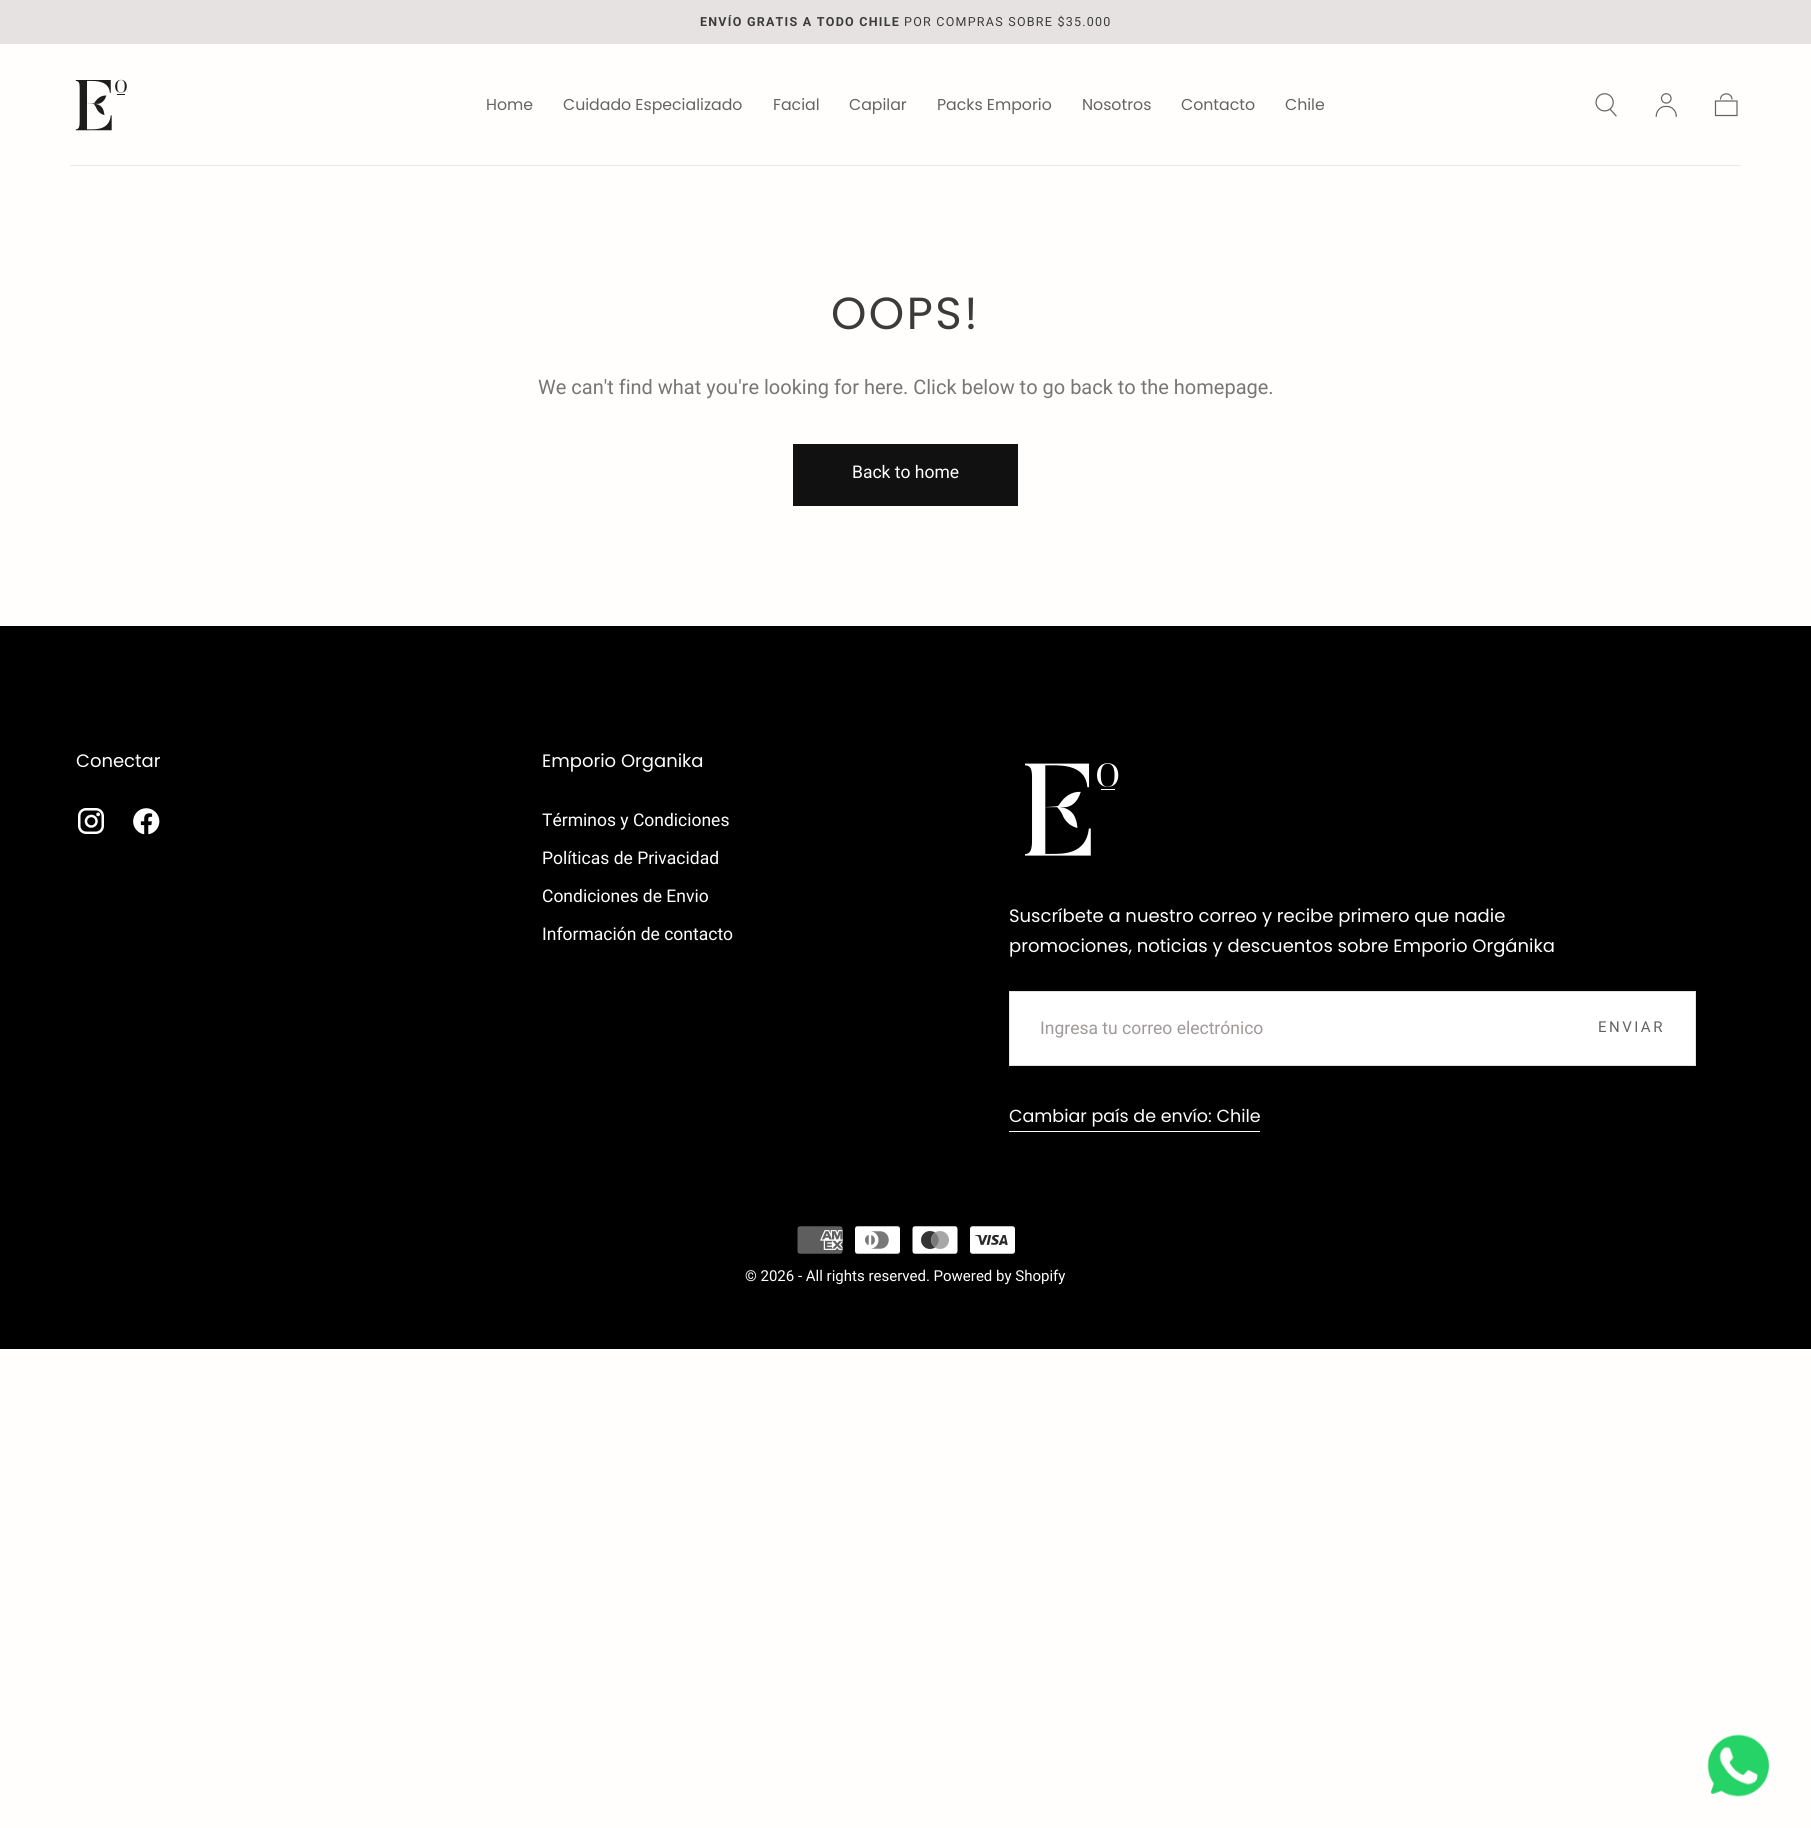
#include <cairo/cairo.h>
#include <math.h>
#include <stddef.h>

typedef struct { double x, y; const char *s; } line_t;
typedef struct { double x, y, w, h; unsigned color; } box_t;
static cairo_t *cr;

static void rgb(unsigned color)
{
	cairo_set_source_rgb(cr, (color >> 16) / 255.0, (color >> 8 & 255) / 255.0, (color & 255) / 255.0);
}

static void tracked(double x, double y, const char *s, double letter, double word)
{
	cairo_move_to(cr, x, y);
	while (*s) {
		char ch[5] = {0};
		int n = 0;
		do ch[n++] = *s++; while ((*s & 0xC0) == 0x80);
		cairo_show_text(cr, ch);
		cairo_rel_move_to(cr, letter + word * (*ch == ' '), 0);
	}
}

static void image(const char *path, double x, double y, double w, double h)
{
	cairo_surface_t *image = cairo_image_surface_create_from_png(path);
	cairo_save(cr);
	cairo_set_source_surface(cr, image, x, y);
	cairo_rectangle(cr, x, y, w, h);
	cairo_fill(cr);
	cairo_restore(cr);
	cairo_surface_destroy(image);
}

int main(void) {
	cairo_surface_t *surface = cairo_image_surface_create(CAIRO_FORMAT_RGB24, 1811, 1828);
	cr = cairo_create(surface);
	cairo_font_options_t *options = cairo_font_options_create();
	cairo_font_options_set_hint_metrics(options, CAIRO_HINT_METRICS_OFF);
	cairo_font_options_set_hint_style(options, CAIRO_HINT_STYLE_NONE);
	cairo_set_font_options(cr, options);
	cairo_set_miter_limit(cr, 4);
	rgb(0xfffefc);
	cairo_paint(cr);
	rgb(0xe6e2e1);
	cairo_rectangle(cr, 0, 0, 1811, 44);
	cairo_fill(cr);
	image("img/1.png", 75, 79, 52, 52);
	image("img/2.png", 1595, 93, 22, 24);
	image("img/3.png", 1655, 93, 22, 24);
	cairo_new_path(cr);
	cairo_move_to(cr, 1737, 115.5);
	cairo_line_to(cr, 1715.5, 115.5);
	cairo_line_to(cr, 1715.5, 101);
	cairo_line_to(cr, 1737, 101);
	cairo_close_path(cr);
	cairo_move_to(cr, 1732, 99.5);
	cairo_curve_to(cr, 1732, 92, 1720.5, 92, 1720.5, 99.5);
	rgb(0x636363);
	cairo_set_line_width(cr, 1.2);
	cairo_stroke(cr);
	{
		static const box_t items[] = {
			{70, 165, 1671, 1, 0xebeae9},
			{793, 444, 225, 62, 0x111111},
			{0, 626, 1811, 723, 0x000000},
		};
		for (size_t i = 0; i < sizeof items / sizeof *items; i++) {
			rgb(items[i].color);
			cairo_rectangle(cr, items[i].x, items[i].y, items[i].w, items[i].h);
			cairo_fill(cr);
		}
	}
	image("img/4.png", 78, 808, 26, 26);
	image("img/5.png", 133, 808, 27, 27);
	image("img/6.png", 1025, 763, 94, 93);
	rgb(0xffffff);
	cairo_rectangle(cr, 1009.5, 991.5, 686, 74);
	cairo_fill_preserve(cr);
	rgb(0xe6e2e1);
	cairo_set_line_width(cr, 1);
	cairo_stroke(cr);
	rgb(0xffffff);
	cairo_rectangle(cr, 1009, 1131, 251, 1);
	cairo_fill(cr);
	image("img/7.png", 797, 1226, 46, 28);
	image("img/8.png", 855, 1226, 45, 28);
	image("img/9.png", 912, 1226, 46, 28);
	image("img/10.png", 970, 1226, 45, 28);
	image("img/11.png", 1707, 1734, 62, 63);
	cairo_save(cr);
	cairo_rectangle(cr, 76, 15, 1660, 14);
	cairo_clip(cr);
	cairo_select_font_face(cr, "Roboto", CAIRO_FONT_SLANT_NORMAL, CAIRO_FONT_WEIGHT_BOLD);
	cairo_set_font_size(cr, 12.5);
	rgb(0x3b3b3b);
	tracked(700, 26, "ENVÍO GRATIS A TODO CHILE", 1.25, 0);
	cairo_restore(cr);
	cairo_select_font_face(cr, "Roboto", CAIRO_FONT_SLANT_NORMAL, CAIRO_FONT_WEIGHT_NORMAL);
	cairo_set_font_size(cr, 12.5);
	rgb(0x3b3b3b);
	tracked(904, 26, "POR COMPRAS SOBRE $35.000", 1.25, 0);
	cairo_select_font_face(cr, "Poppins", CAIRO_FONT_SLANT_NORMAL, CAIRO_FONT_WEIGHT_NORMAL);
	cairo_set_font_size(cr, 15.75);
	rgb(0x636363);
	{
		static const line_t items[] = {
			{486, 110, "Home"},
			{563, 110, "Cuidado Especializado"},
			{773, 110, "Facial"},
			{849, 110, "Capilar"},
			{937, 110, "Packs Emporio"},
			{1082, 110, "Nosotros"},
			{1181, 110, "Contacto"},
			{1285, 110, "Chile"},
		};
		for (size_t i = 0; i < sizeof items / sizeof *items; i++) {
			cairo_move_to(cr, items[i].x, items[i].y);
			cairo_show_text(cr, items[i].s);
		}
	}
	cairo_set_font_size(cr, 45);
	rgb(0x3b3b3b);
	tracked(831, 329, "OOPS!", 2.5, 0);
	cairo_select_font_face(cr, "Roboto", CAIRO_FONT_SLANT_NORMAL, CAIRO_FONT_WEIGHT_NORMAL);
	cairo_set_font_size(cr, 20);
	rgb(0x767676);
	cairo_move_to(cr, 538, 394);
	cairo_show_text(cr, "We can't find what you're looking for here. Click below to go back to the homepage.");
	cairo_set_font_size(cr, 17.5);
	rgb(0xffffff);
	cairo_move_to(cr, 852, 478);
	cairo_show_text(cr, "Back to home");
	cairo_select_font_face(cr, "Poppins", CAIRO_FONT_SLANT_NORMAL, CAIRO_FONT_WEIGHT_NORMAL);
	cairo_set_font_size(cr, 18);
	cairo_move_to(cr, 76, 767);
	cairo_show_text(cr, "Conectar");
	cairo_move_to(cr, 542, 767);
	cairo_show_text(cr, "Emporio Organika");
	cairo_select_font_face(cr, "Roboto", CAIRO_FONT_SLANT_NORMAL, CAIRO_FONT_WEIGHT_NORMAL);
	cairo_set_font_size(cr, 17.5);
	{
		static const line_t items[] = {
			{542, 826, "Términos y Condiciones"},
			{542, 864, "Políticas de Privacidad"},
			{542, 902, "Condiciones de Envio"},
			{542, 940, "Información de contacto"},
		};
		for (size_t i = 0; i < sizeof items / sizeof *items; i++) {
			cairo_move_to(cr, items[i].x, items[i].y);
			cairo_show_text(cr, items[i].s);
		}
	}
	cairo_select_font_face(cr, "Poppins", CAIRO_FONT_SLANT_NORMAL, CAIRO_FONT_WEIGHT_NORMAL);
	cairo_set_font_size(cr, 18);
	cairo_move_to(cr, 1009, 922);
	cairo_show_text(cr, "Suscríbete a nuestro correo y recibe primero que nadie");
	cairo_move_to(cr, 1009, 952);
	cairo_show_text(cr, "promociones, noticias y descuentos sobre Emporio Orgánika");
	cairo_select_font_face(cr, "Roboto", CAIRO_FONT_SLANT_NORMAL, CAIRO_FONT_WEIGHT_NORMAL);
	cairo_set_font_size(cr, 17.5);
	rgb(0x9e9a99);
	cairo_move_to(cr, 1040, 1034);
	cairo_show_text(cr, "Ingresa tu correo electrónico");
	cairo_set_font_size(cr, 15);
	rgb(0x636363);
	tracked(1598, 1032, "ENVIAR", 2.5, 0);
	cairo_select_font_face(cr, "Poppins", CAIRO_FONT_SLANT_NORMAL, CAIRO_FONT_WEIGHT_NORMAL);
	cairo_set_font_size(cr, 17.5);
	rgb(0xffffff);
	cairo_move_to(cr, 1009, 1122);
	cairo_show_text(cr, "Cambiar país de envío: Chile");
	cairo_select_font_face(cr, "Roboto", CAIRO_FONT_SLANT_NORMAL, CAIRO_FONT_WEIGHT_NORMAL);
	cairo_set_font_size(cr, 15);
	cairo_move_to(cr, 745, 1281);
	cairo_show_text(cr, "© 2026 - All rights reserved. Powered by Shopify");
	cairo_surface_write_to_png(surface, "page.png");
	cairo_font_options_destroy(options);
	cairo_destroy(cr);
	cairo_surface_destroy(surface);
	return 0;
}
